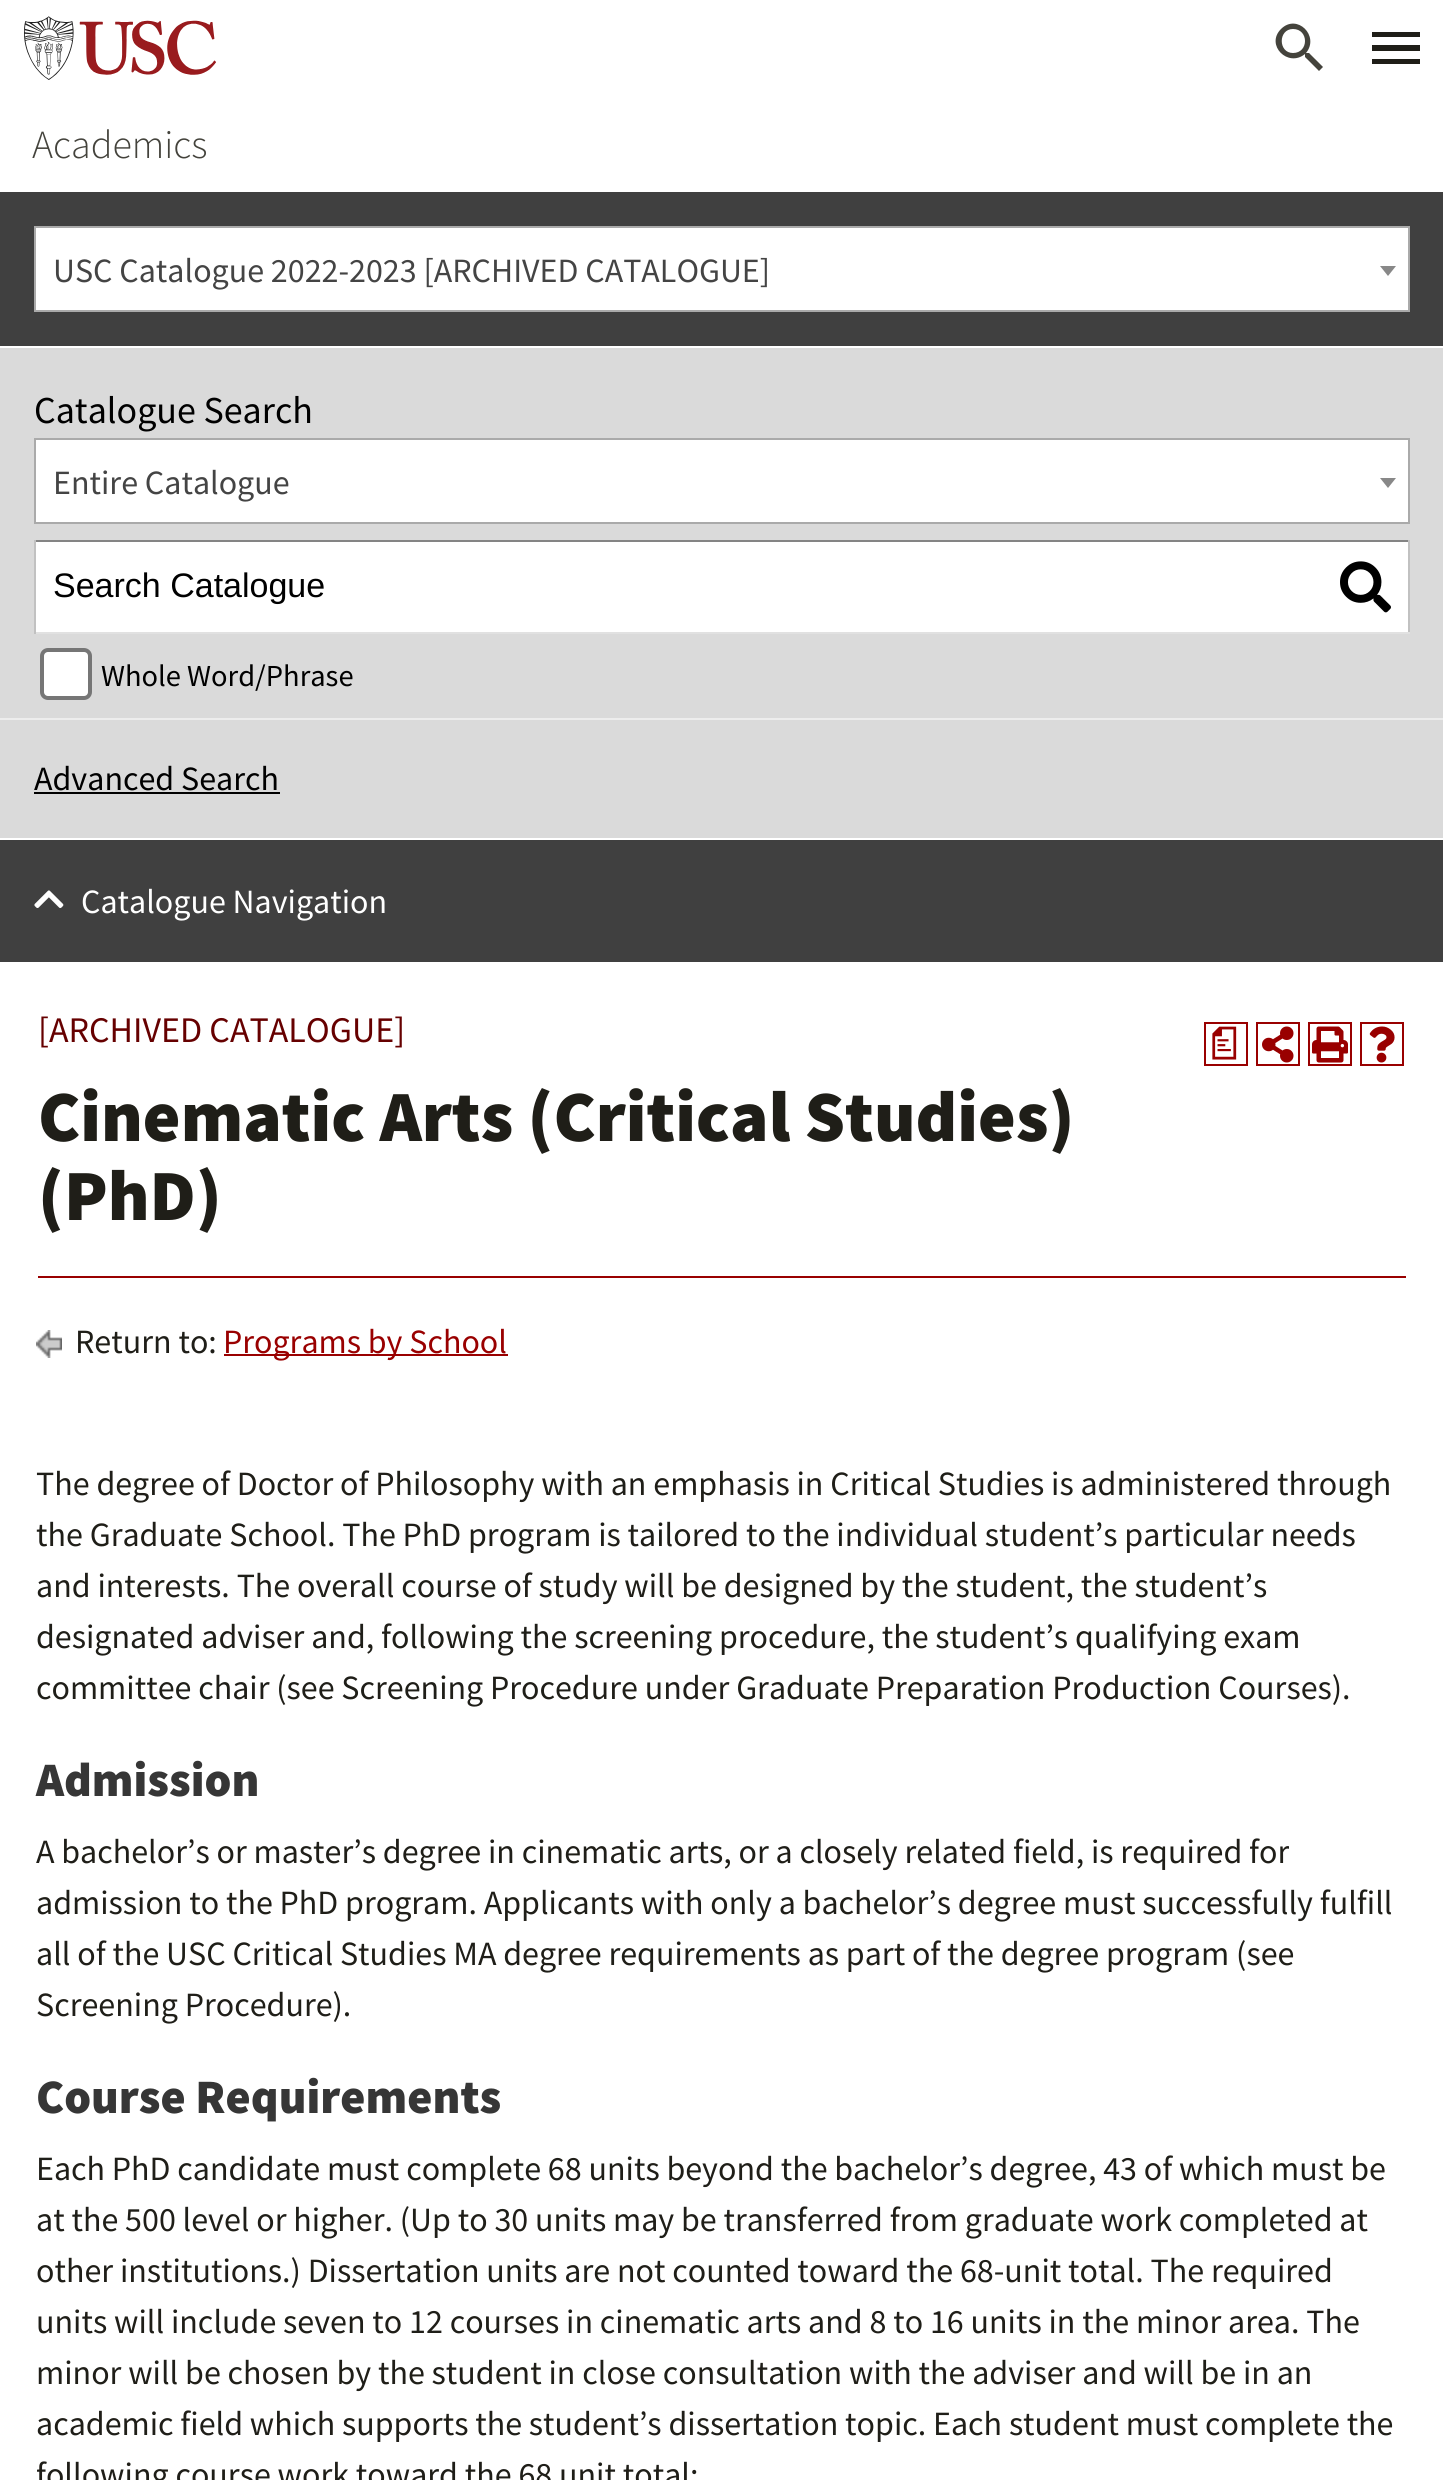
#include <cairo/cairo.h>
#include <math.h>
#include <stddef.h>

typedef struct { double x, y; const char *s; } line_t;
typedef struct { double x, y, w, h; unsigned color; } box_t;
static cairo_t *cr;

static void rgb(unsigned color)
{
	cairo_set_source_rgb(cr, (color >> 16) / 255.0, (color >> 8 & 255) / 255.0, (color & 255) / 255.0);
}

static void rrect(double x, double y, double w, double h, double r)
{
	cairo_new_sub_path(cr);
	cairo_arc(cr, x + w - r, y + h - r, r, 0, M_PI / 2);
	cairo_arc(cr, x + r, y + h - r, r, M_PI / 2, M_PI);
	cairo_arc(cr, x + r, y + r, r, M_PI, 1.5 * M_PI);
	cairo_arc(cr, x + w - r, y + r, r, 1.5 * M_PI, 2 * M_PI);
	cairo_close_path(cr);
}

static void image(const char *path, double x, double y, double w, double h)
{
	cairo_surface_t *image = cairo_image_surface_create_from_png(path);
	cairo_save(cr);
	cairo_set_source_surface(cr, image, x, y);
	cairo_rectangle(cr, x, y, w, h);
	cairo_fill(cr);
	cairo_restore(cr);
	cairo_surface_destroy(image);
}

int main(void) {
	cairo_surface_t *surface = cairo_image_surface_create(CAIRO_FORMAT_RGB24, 1443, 2480);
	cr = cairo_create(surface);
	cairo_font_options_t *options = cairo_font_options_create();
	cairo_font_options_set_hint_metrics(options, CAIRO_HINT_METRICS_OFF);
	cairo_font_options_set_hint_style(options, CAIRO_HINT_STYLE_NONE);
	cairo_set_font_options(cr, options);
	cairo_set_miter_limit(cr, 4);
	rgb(0xffffff);
	cairo_paint(cr);
	image("img/1.png", 24, 16, 192, 64);
	rgb(0x44433c);
	cairo_new_path(cr);
	cairo_move_to(cr, 1309, 53);
	cairo_line_to(cr, 1307, 53);
	cairo_line_to(cr, 1306, 53);
	cairo_curve_to(cr, 1320, 36, 1297, 13, 1281, 29);
	cairo_curve_to(cr, 1265, 45, 1288, 68, 1305, 54);
	cairo_line_to(cr, 1305, 55);
	cairo_line_to(cr, 1305, 57);
	cairo_line_to(cr, 1319, 71);
	cairo_line_to(cr, 1323, 67);
	cairo_close_path(cr);
	cairo_move_to(cr, 1293, 53);
	cairo_curve_to(cr, 1278, 53, 1278, 29, 1293, 29);
	cairo_curve_to(cr, 1309, 29, 1309, 53, 1293, 53);
	cairo_close_path(cr);
	cairo_fill(cr);
	rgb(0x1f1e18);
	cairo_new_path(cr);
	cairo_move_to(cr, 1372, 64);
	cairo_line_to(cr, 1420, 64);
	cairo_line_to(cr, 1420, 59);
	cairo_line_to(cr, 1372, 59);
	cairo_close_path(cr);
	cairo_move_to(cr, 1372, 51);
	cairo_line_to(cr, 1420, 51);
	cairo_line_to(cr, 1420, 45);
	cairo_line_to(cr, 1372, 45);
	cairo_close_path(cr);
	cairo_move_to(cr, 1372, 32);
	cairo_line_to(cr, 1372, 37);
	cairo_line_to(cr, 1420, 37);
	cairo_line_to(cr, 1420, 32);
	cairo_close_path(cr);
	cairo_fill(cr);
	rgb(0x404040);
	cairo_rectangle(cr, 0, 192, 1443, 154);
	cairo_fill(cr);
	rgb(0xffffff);
	cairo_rectangle(cr, 35, 227, 1374, 84);
	cairo_fill_preserve(cr);
	rgb(0xaaaaaa);
	cairo_stroke(cr);
	rgb(0x888888);
	cairo_new_path(cr);
	cairo_move_to(cr, 1380, 266);
	cairo_line_to(cr, 1396, 266);
	cairo_line_to(cr, 1388, 276);
	cairo_close_path(cr);
	cairo_fill(cr);
	rgb(0xdadada);
	cairo_rectangle(cr, 0, 348, 1443, 490);
	cairo_fill(cr);
	rgb(0xffffff);
	cairo_rectangle(cr, 35, 439, 1374, 84);
	cairo_fill_preserve(cr);
	rgb(0xaaaaaa);
	cairo_stroke(cr);
	rgb(0x888888);
	cairo_new_path(cr);
	cairo_move_to(cr, 1380, 478);
	cairo_line_to(cr, 1396, 478);
	cairo_line_to(cr, 1388, 488);
	cairo_close_path(cr);
	cairo_fill(cr);
	{
		static const box_t items[] = {
			{36, 542, 1372, 90, 0xffffff},
			{34, 540, 1376, 2, 0x848484},
			{1408, 540, 2, 94, 0xc1c1c1},
			{34, 632, 1376, 2, 0xe1e1e1},
			{34, 540, 2, 94, 0xc1c1c1},
		};
		for (size_t i = 0; i < sizeof items / sizeof *items; i++) {
			rgb(items[i].color);
			cairo_rectangle(cr, items[i].x, items[i].y, items[i].w, items[i].h);
			cairo_fill(cr);
		}
	}
	image("img/2.png", 1340, 561, 51, 52);
	rgb(0xffffff);
	rrect(42, 650, 48, 48, 6);
	cairo_fill_preserve(cr);
	rgb(0x767676);
	cairo_set_line_width(cr, 4);
	cairo_stroke(cr);
	{
		static const box_t items[] = {
			{0, 718, 1443, 2, 0xededed},
			{34, 792, 246, 2, 0x000000},
			{0, 840, 1443, 122, 0x404040},
		};
		for (size_t i = 0; i < sizeof items / sizeof *items; i++) {
			rgb(items[i].color);
			cairo_rectangle(cr, items[i].x, items[i].y, items[i].w, items[i].h);
			cairo_fill(cr);
		}
	}
	image("img/3.png", 34, 890, 30, 18);
	cairo_rectangle(cr, 1205, 1023, 42, 42);
	rgb(0x990000);
	cairo_set_line_width(cr, 2);
	cairo_stroke(cr);
	cairo_rectangle(cr, 1257, 1023, 42, 42);
	cairo_stroke(cr);
	image("img/4.png", 1262, 1026, 32, 37);
	cairo_rectangle(cr, 1309, 1023, 42, 42);
	cairo_stroke(cr);
	image("img/5.png", 1312, 1026, 36, 37);
	cairo_rectangle(cr, 1361, 1023, 42, 42);
	cairo_stroke(cr);
	image("img/6.png", 1369, 1026, 26, 37);
	cairo_rectangle(cr, 38, 1276, 1368, 2);
	cairo_fill(cr);
	image("img/7.png", 36, 1330, 26, 28);
	cairo_rectangle(cr, 224, 1354, 284, 2);
	cairo_fill(cr);
	cairo_select_font_face(cr, "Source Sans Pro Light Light", CAIRO_FONT_SLANT_NORMAL, CAIRO_FONT_WEIGHT_NORMAL);
	cairo_set_font_size(cr, 40);
	rgb(0x44433c);
	cairo_move_to(cr, 32, 158);
	cairo_show_text(cr, "Academics");
	cairo_select_font_face(cr, "Source Sans Pro", CAIRO_FONT_SLANT_NORMAL, CAIRO_FONT_WEIGHT_NORMAL);
	cairo_set_font_size(cr, 34);
	rgb(0x444444);
	cairo_move_to(cr, 53, 282);
	cairo_show_text(cr, "USC Catalogue 2022-2023 [ARCHIVED CATALOGUE]");
	cairo_set_font_size(cr, 38);
	rgb(0x000000);
	cairo_move_to(cr, 34, 423);
	cairo_show_text(cr, "Catalogue Search");
	cairo_set_font_size(cr, 34);
	rgb(0x444444);
	cairo_move_to(cr, 53, 494);
	cairo_show_text(cr, "Entire Catalogue");
	cairo_select_font_face(cr, "Liberation Sans", CAIRO_FONT_SLANT_NORMAL, CAIRO_FONT_WEIGHT_NORMAL);
	rgb(0x000000);
	cairo_move_to(cr, 53, 597);
	cairo_show_text(cr, "Search Catalogue");
	cairo_select_font_face(cr, "Source Sans Pro", CAIRO_FONT_SLANT_NORMAL, CAIRO_FONT_WEIGHT_NORMAL);
	cairo_set_font_size(cr, 30.5);
	cairo_move_to(cr, 101, 686);
	cairo_show_text(cr, "Whole Word/Phrase");
	cairo_set_font_size(cr, 34);
	cairo_move_to(cr, 34, 790);
	cairo_show_text(cr, "Advanced Search");
	rgb(0xffffff);
	cairo_move_to(cr, 81, 913);
	cairo_show_text(cr, "Catalogue Navigation");
	cairo_set_font_size(cr, 36);
	rgb(0x660000);
	cairo_move_to(cr, 38, 1042);
	cairo_show_text(cr, "[ARCHIVED CATALOGUE]");
	cairo_select_font_face(cr, "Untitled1 Medium", CAIRO_FONT_SLANT_NORMAL, CAIRO_FONT_WEIGHT_NORMAL);
	rgb(0x990000);
	cairo_move_to(cr, 1206, 1054);
	cairo_show_text(cr, "a");
	cairo_select_font_face(cr, "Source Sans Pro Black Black", CAIRO_FONT_SLANT_NORMAL, CAIRO_FONT_WEIGHT_NORMAL);
	cairo_set_font_size(cr, 72);
	rgb(0x1f1e18);
	cairo_move_to(cr, 38, 1141);
	cairo_show_text(cr, "Cinematic Arts (Critical Studies)");
	cairo_move_to(cr, 38, 1220);
	cairo_show_text(cr, "(PhD)");
	cairo_select_font_face(cr, "Source Sans Pro", CAIRO_FONT_SLANT_NORMAL, CAIRO_FONT_WEIGHT_NORMAL);
	cairo_set_font_size(cr, 34);
	cairo_move_to(cr, 75, 1353);
	cairo_show_text(cr, "Return to:");
	rgb(0x990000);
	cairo_move_to(cr, 223, 1353);
	cairo_show_text(cr, "Programs by School");
	rgb(0x1f1e18);
	{
		static const line_t items[] = {
			{36, 1495, "The degree of Doctor of Philosophy with an emphasis in Critical Studies is administered through"},
			{36, 1546, "the Graduate School. The PhD program is tailored to the individual student’s particular needs"},
			{36, 1597, "and interests. The overall course of study will be designed by the student, the student’s"},
			{36, 1648, "designated adviser and, following the screening procedure, the student’s qualifying exam"},
			{36, 1699, "committee chair (see Screening Procedure under Graduate Preparation Production Courses)."},
		};
		for (size_t i = 0; i < sizeof items / sizeof *items; i++) {
			cairo_move_to(cr, items[i].x, items[i].y);
			cairo_show_text(cr, items[i].s);
		}
	}
	cairo_select_font_face(cr, "Source Sans Pro Black Black", CAIRO_FONT_SLANT_NORMAL, CAIRO_FONT_WEIGHT_NORMAL);
	cairo_set_font_size(cr, 48);
	rgb(0x363636);
	cairo_move_to(cr, 36, 1796);
	cairo_show_text(cr, "Admission");
	cairo_select_font_face(cr, "Source Sans Pro", CAIRO_FONT_SLANT_NORMAL, CAIRO_FONT_WEIGHT_NORMAL);
	cairo_set_font_size(cr, 34);
	rgb(0x1f1e18);
	{
		static const line_t items[] = {
			{36, 1863, "A bachelor’s or master’s degree in cinematic arts, or a closely related field, is required for"},
			{36, 1914, "admission to the PhD program. Applicants with only a bachelor’s degree must successfully fulfill"},
			{36, 1965, "all of the USC Critical Studies MA degree requirements as part of the degree program (see"},
			{36, 2016, "Screening Procedure)."},
		};
		for (size_t i = 0; i < sizeof items / sizeof *items; i++) {
			cairo_move_to(cr, items[i].x, items[i].y);
			cairo_show_text(cr, items[i].s);
		}
	}
	cairo_select_font_face(cr, "Source Sans Pro Black Black", CAIRO_FONT_SLANT_NORMAL, CAIRO_FONT_WEIGHT_NORMAL);
	cairo_set_font_size(cr, 48);
	rgb(0x363636);
	cairo_move_to(cr, 36, 2113);
	cairo_show_text(cr, "Course Requirements");
	cairo_select_font_face(cr, "Source Sans Pro", CAIRO_FONT_SLANT_NORMAL, CAIRO_FONT_WEIGHT_NORMAL);
	cairo_set_font_size(cr, 34);
	rgb(0x1f1e18);
	{
		static const line_t items[] = {
			{36, 2180, "Each PhD candidate must complete 68 units beyond the bachelor’s degree, 43 of which must be"},
			{36, 2231, "at the 500 level or higher. (Up to 30 units may be transferred from graduate work completed at"},
			{36, 2282, "other institutions.) Dissertation units are not counted toward the 68-unit total. The required"},
			{36, 2333, "units will include seven to 12 courses in cinematic arts and 8 to 16 units in the minor area. The"},
			{36, 2384, "minor will be chosen by the student in close consultation with the adviser and will be in an"},
			{36, 2435, "academic field which supports the student’s dissertation topic. Each student must complete the"},
			{36, 2486, "following course work toward the 68 unit total:"},
		};
		for (size_t i = 0; i < sizeof items / sizeof *items; i++) {
			cairo_move_to(cr, items[i].x, items[i].y);
			cairo_show_text(cr, items[i].s);
		}
	}
	cairo_surface_write_to_png(surface, "page.png");
	cairo_font_options_destroy(options);
	cairo_destroy(cr);
	cairo_surface_destroy(surface);
	return 0;
}
